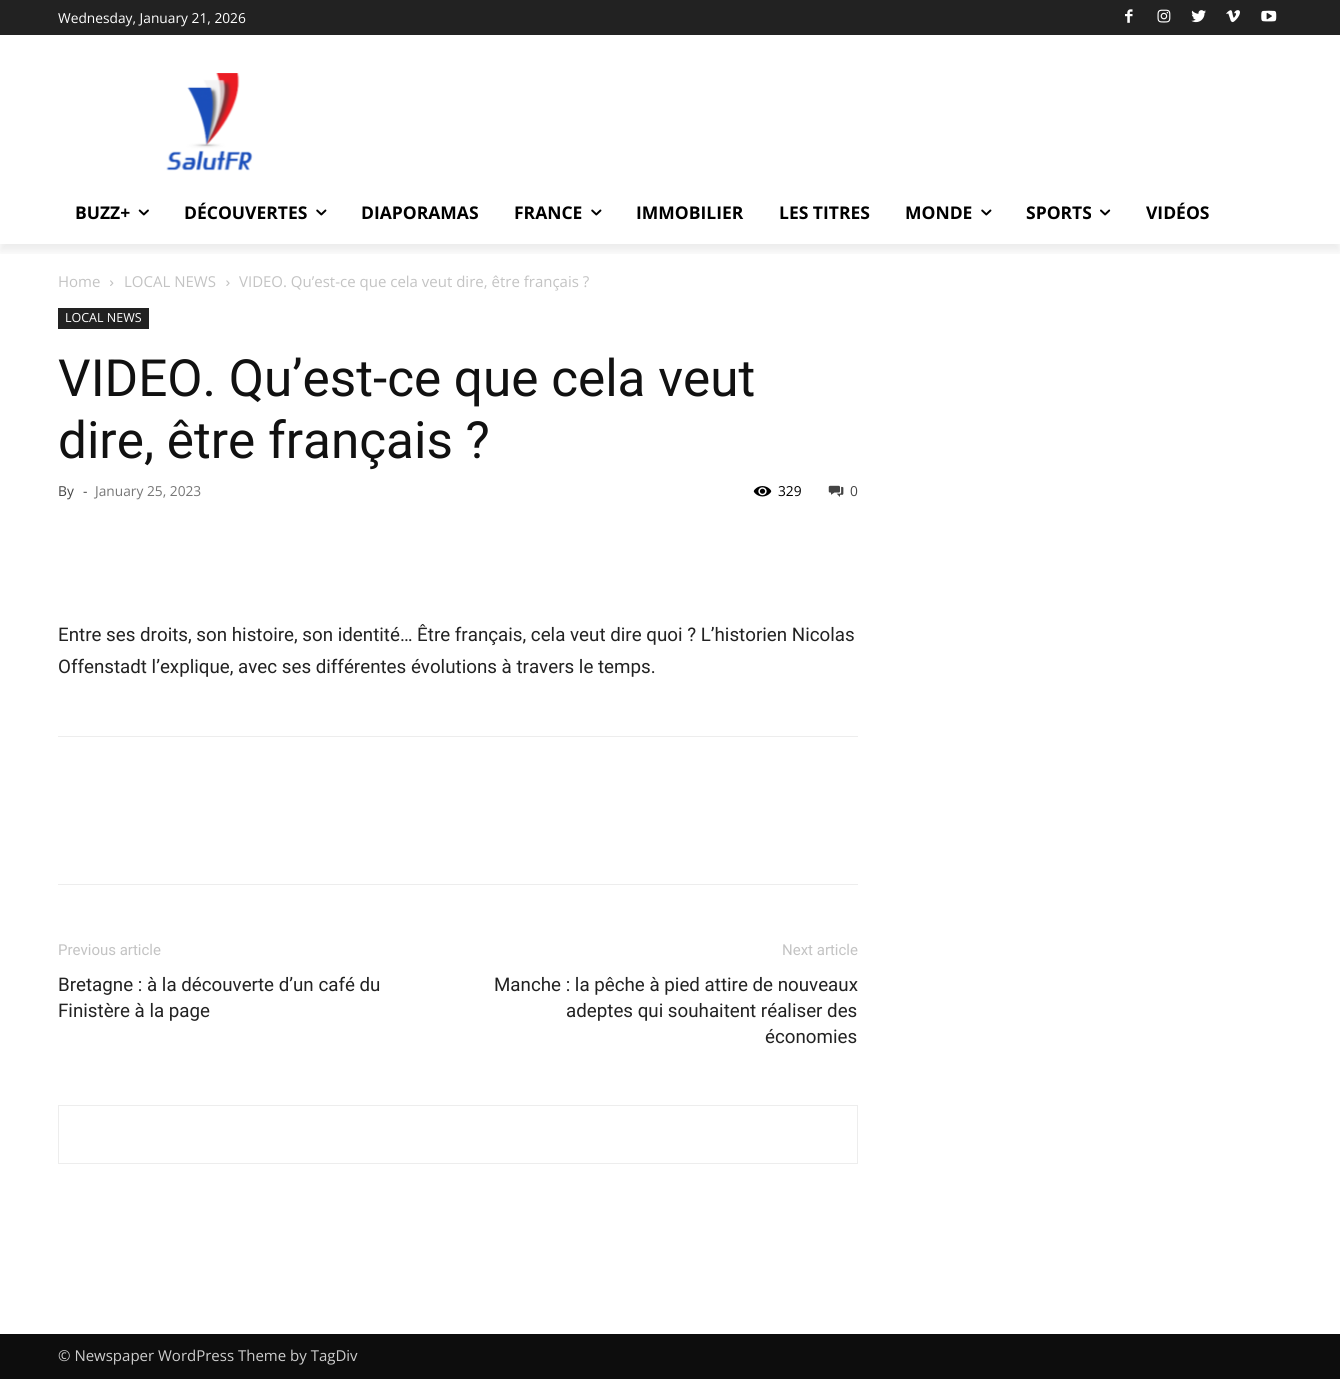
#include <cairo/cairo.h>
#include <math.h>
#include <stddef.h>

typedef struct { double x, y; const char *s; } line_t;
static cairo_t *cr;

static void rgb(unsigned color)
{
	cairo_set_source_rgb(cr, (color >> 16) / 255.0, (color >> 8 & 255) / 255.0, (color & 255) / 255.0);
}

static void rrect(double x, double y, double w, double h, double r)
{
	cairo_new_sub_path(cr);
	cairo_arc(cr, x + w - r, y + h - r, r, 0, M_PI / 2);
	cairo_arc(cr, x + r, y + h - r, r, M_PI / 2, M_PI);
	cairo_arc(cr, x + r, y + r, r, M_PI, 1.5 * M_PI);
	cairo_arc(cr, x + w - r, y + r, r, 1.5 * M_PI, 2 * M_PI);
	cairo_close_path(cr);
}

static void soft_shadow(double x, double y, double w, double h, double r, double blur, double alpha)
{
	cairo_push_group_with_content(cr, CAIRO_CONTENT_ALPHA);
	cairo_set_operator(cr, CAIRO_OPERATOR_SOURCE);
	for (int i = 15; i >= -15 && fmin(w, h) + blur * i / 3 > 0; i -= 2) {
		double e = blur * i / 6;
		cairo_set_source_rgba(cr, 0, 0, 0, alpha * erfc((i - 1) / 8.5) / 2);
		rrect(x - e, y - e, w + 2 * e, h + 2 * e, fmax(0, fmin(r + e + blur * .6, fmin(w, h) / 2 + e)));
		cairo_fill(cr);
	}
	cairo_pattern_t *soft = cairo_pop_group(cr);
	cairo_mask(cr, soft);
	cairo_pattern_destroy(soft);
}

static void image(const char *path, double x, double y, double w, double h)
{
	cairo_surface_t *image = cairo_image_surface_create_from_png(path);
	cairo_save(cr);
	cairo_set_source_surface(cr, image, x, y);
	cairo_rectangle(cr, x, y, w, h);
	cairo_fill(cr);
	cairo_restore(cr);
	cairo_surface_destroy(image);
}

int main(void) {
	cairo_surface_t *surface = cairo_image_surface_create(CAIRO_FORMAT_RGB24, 1340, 1386);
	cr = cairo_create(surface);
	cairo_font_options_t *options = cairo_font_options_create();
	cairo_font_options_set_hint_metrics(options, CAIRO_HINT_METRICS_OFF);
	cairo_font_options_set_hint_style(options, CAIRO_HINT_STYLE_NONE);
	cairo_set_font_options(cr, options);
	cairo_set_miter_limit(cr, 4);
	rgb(0xffffff);
	cairo_paint(cr);
	rgb(0x222222);
	cairo_rectangle(cr, 0, 0, 1340, 35);
	cairo_fill(cr);
	image("img/1.png", 1125, 9, 8, 14);
	image("img/2.png", 1157, 9, 14, 14);
	image("img/3.png", 1191, 10, 15, 13);
	image("img/4.png", 1226, 10, 14, 13);
	image("img/5.png", 1261, 10, 16, 12);
	image("img/6.png", 166, 73, 87, 98);
	cairo_save(cr);
	cairo_rectangle(cr, 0, 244, 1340, 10);
	cairo_clip(cr);
	rgb(0x000000);
	soft_shadow(0, 8, 1340, 243, 0, 5, 0.08);
	cairo_restore(cr);
	image("img/7.png", 138, 209, 11, 7);
	image("img/8.png", 316, 209, 11, 7);
	image("img/8.png", 591, 209, 11, 7);
	image("img/8.png", 981, 209, 11, 7);
	image("img/9.png", 1100, 209, 11, 7);
	image("img/10.png", 110, 280, 4, 6);
	image("img/11.png", 226, 280, 4, 6);
	cairo_rectangle(cr, 58, 308, 91, 21);
	cairo_fill(cr);
	image("img/12.png", 753, 486, 19, 11);
	image("img/13.png", 828, 485, 16, 12);
	rgb(0xededed);
	cairo_rectangle(cr, 58, 736, 800, 1);
	cairo_fill(cr);
	cairo_rectangle(cr, 58, 884, 800, 1);
	cairo_fill(cr);
	cairo_rectangle(cr, 58.5, 1105.5, 799, 58);
	cairo_set_line_width(cr, 1);
	cairo_stroke(cr);
	rgb(0x0d0d0d);
	cairo_rectangle(cr, 0, 1334, 1340, 45);
	cairo_fill(cr);
	cairo_select_font_face(cr, "Open Sans", CAIRO_FONT_SLANT_NORMAL, CAIRO_FONT_WEIGHT_NORMAL);
	cairo_set_font_size(cr, 13.75);
	rgb(0xffffff);
	cairo_move_to(cr, 58, 23);
	cairo_show_text(cr, "Wednesday, January 21, 2026");
	cairo_select_font_face(cr, "Open Sans", CAIRO_FONT_SLANT_NORMAL, CAIRO_FONT_WEIGHT_BOLD);
	cairo_set_font_size(cr, 17.5);
	rgb(0x000000);
	{
		static const line_t items[] = {
			{75, 219, "BUZZ+"},
			{184, 219, "DÉCOUVERTES"},
			{361, 219, "DIAPORAMAS"},
			{514, 219, "FRANCE"},
			{636, 219, "IMMOBILIER"},
			{779, 219, "LES TITRES"},
			{905, 219, "MONDE"},
			{1026, 219, "SPORTS"},
			{1146, 219, "VIDÉOS"},
		};
		for (size_t i = 0; i < sizeof items / sizeof *items; i++) {
			cairo_move_to(cr, items[i].x, items[i].y);
			cairo_show_text(cr, items[i].s);
		}
	}
	cairo_select_font_face(cr, "Open Sans", CAIRO_FONT_SLANT_NORMAL, CAIRO_FONT_WEIGHT_NORMAL);
	cairo_set_font_size(cr, 15);
	rgb(0xc3c3c3);
	{
		static const line_t items[] = {
			{58, 287, "Home"},
			{124, 287, "LOCAL NEWS"},
			{239, 287, "VIDEO. Qu’est-ce que cela veut dire, être français ?"},
		};
		for (size_t i = 0; i < sizeof items / sizeof *items; i++) {
			cairo_move_to(cr, items[i].x, items[i].y);
			cairo_show_text(cr, items[i].s);
		}
	}
	cairo_set_font_size(cr, 12.5);
	rgb(0xffffff);
	cairo_move_to(cr, 65, 322);
	cairo_show_text(cr, "LOCAL NEWS");
	cairo_select_font_face(cr, "Roboto", CAIRO_FONT_SLANT_NORMAL, CAIRO_FONT_WEIGHT_NORMAL);
	cairo_set_font_size(cr, 51.25);
	rgb(0x111111);
	cairo_move_to(cr, 58, 396);
	cairo_show_text(cr, "VIDEO. Qu’est-ce que cela veut");
	cairo_move_to(cr, 58, 458);
	cairo_show_text(cr, "dire, être français ?");
	cairo_select_font_face(cr, "Open Sans", CAIRO_FONT_SLANT_NORMAL, CAIRO_FONT_WEIGHT_NORMAL);
	cairo_set_font_size(cr, 13.75);
	rgb(0x444444);
	cairo_move_to(cr, 58, 496);
	cairo_show_text(cr, "By");
	cairo_move_to(cr, 83, 496);
	cairo_show_text(cr, "-");
	rgb(0x767676);
	cairo_move_to(cr, 95, 496);
	cairo_show_text(cr, "January 25, 2023");
	rgb(0x000000);
	cairo_move_to(cr, 778, 496);
	cairo_show_text(cr, "329");
	rgb(0x444444);
	cairo_move_to(cr, 850, 496);
	cairo_show_text(cr, "0");
	cairo_select_font_face(cr, "Roboto", CAIRO_FONT_SLANT_NORMAL, CAIRO_FONT_WEIGHT_NORMAL);
	cairo_set_font_size(cr, 18.75);
	rgb(0x222222);
	cairo_move_to(cr, 58, 641);
	cairo_show_text(cr, "Entre ses droits, son histoire, son identité… Être français, cela veut dire quoi ? L’historien Nicolas");
	cairo_move_to(cr, 58, 673);
	cairo_show_text(cr, "Offenstadt l’explique, avec ses différentes évolutions à travers le temps.");
	cairo_set_font_size(cr, 15);
	rgb(0xc3c3c3);
	cairo_move_to(cr, 58, 955);
	cairo_show_text(cr, "Previous article");
	cairo_set_font_size(cr, 18.75);
	rgb(0x222222);
	cairo_move_to(cr, 58, 991);
	cairo_show_text(cr, "Bretagne : à la découverte d’un café du");
	cairo_move_to(cr, 58, 1017);
	cairo_show_text(cr, "Finistère à la page");
	cairo_set_font_size(cr, 15);
	rgb(0xc3c3c3);
	cairo_move_to(cr, 782, 955);
	cairo_show_text(cr, "Next article");
	cairo_set_font_size(cr, 18.75);
	rgb(0x222222);
	{
		static const line_t items[] = {
			{494, 991, "Manche : la pêche à pied attire de nouveaux"},
			{566, 1017, "adeptes qui souhaitent réaliser des"},
			{765, 1043, "économies"},
		};
		for (size_t i = 0; i < sizeof items / sizeof *items; i++) {
			cairo_move_to(cr, items[i].x, items[i].y);
			cairo_show_text(cr, items[i].s);
		}
	}
	cairo_select_font_face(cr, "Open Sans", CAIRO_FONT_SLANT_NORMAL, CAIRO_FONT_WEIGHT_NORMAL);
	cairo_set_font_size(cr, 15);
	rgb(0xcccccc);
	cairo_move_to(cr, 58, 1361);
	cairo_show_text(cr, "© Newspaper WordPress Theme by TagDiv");
	cairo_surface_write_to_png(surface, "page.png");
	cairo_font_options_destroy(options);
	cairo_destroy(cr);
	cairo_surface_destroy(surface);
	return 0;
}
